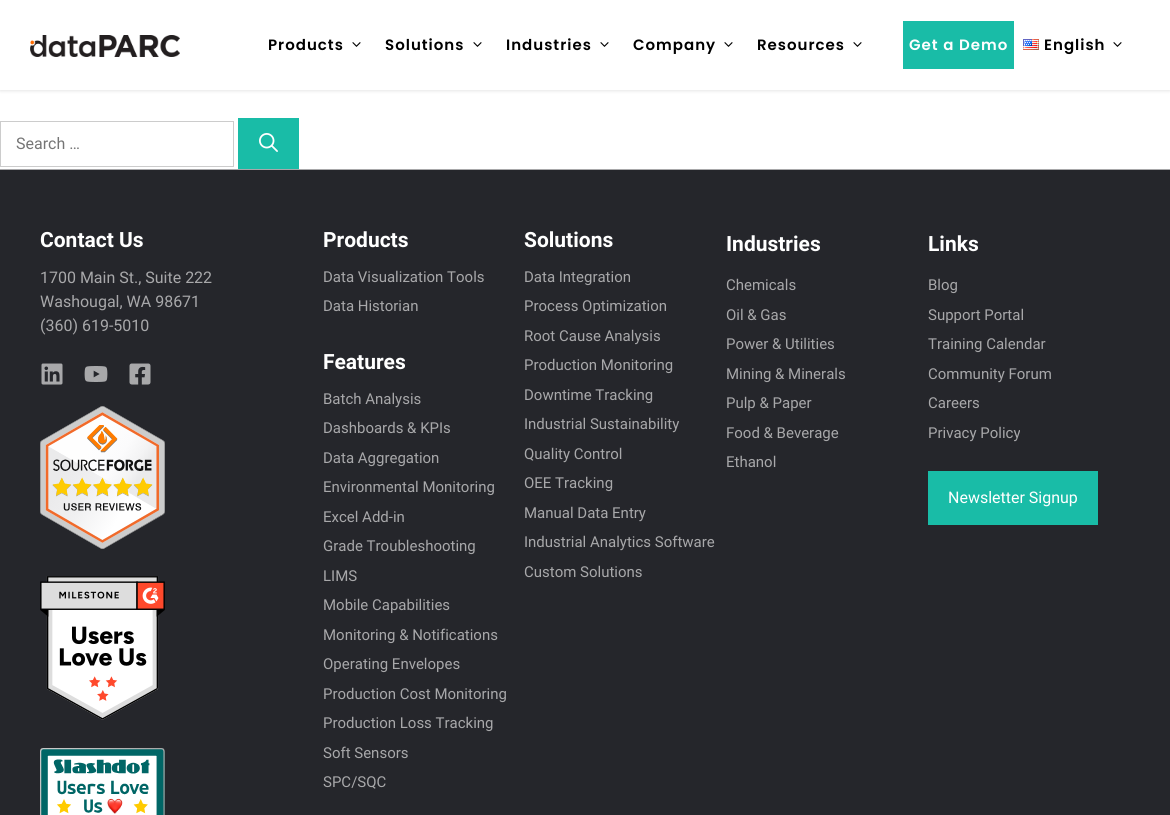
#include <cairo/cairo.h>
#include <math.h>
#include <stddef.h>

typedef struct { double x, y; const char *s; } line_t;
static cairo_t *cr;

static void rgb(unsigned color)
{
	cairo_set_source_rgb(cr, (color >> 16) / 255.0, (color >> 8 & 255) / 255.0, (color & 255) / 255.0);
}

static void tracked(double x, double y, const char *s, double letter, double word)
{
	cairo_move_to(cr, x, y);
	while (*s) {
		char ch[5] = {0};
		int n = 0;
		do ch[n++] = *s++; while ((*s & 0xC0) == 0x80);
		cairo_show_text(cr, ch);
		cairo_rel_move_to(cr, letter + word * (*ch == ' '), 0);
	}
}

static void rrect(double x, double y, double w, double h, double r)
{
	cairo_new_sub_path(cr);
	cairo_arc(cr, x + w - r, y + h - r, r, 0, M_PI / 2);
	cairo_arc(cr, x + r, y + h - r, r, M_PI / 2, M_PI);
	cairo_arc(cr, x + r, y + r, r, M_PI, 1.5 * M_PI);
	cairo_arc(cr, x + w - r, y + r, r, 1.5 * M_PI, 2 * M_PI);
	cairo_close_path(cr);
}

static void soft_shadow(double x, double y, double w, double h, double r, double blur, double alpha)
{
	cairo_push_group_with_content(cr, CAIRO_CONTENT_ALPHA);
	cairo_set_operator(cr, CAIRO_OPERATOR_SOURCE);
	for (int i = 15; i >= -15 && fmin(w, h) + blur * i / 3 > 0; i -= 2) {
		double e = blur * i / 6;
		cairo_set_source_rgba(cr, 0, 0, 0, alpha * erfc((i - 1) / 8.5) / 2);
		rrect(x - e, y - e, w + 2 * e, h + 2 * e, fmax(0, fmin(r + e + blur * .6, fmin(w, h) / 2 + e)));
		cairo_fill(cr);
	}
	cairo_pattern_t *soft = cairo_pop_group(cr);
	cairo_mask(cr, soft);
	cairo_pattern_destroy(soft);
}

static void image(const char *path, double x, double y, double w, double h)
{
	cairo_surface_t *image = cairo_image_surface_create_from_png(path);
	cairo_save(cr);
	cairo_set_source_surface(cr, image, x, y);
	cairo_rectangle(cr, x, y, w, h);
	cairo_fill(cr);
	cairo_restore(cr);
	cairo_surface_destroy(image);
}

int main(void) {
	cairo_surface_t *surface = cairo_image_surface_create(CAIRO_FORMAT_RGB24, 1170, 815);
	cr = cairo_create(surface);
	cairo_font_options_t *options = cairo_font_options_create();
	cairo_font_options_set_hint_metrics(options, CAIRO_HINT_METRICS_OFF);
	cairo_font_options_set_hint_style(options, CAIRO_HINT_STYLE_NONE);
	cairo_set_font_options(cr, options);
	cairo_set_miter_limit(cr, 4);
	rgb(0xffffff);
	cairo_paint(cr);
	rgb(0x000000);
	soft_shadow(0, 1, 1170, 90, 0, 1.5, 0.1);
	rgb(0xffffff);
	cairo_rectangle(cr, 0, 0, 1170, 90);
	cairo_fill(cr);
	image("img/1.png", 30, 35, 150, 22);
	image("img/2.png", 352, 42, 9, 5);
	image("img/2.png", 473, 42, 9, 5);
	image("img/2.png", 600, 42, 9, 5);
	image("img/2.png", 724, 42, 9, 5);
	image("img/2.png", 853, 42, 9, 5);
	rgb(0x19bca7);
	rrect(901.5, 19.5, 114, 51, 0.5);
	cairo_fill_preserve(cr);
	rgb(0xffffff);
	cairo_set_line_width(cr, 3);
	cairo_stroke(cr);
	image("img/3.png", 1023, 39, 16, 11);
	image("img/2.png", 1113, 42, 9, 5);
	cairo_rectangle(cr, 0.5, 121.5, 233, 45);
	rgb(0xcccccc);
	cairo_set_line_width(cr, 1);
	cairo_stroke(cr);
	rgb(0x19bca7);
	cairo_rectangle(cr, 238, 118, 61, 51);
	cairo_fill(cr);
	image("img/4.png", 259, 133, 19, 19);
	rgb(0x25262b);
	cairo_rectangle(cr, 0, 170, 1170, 645);
	cairo_fill(cr);
	rgb(0xa8a8aa);
	cairo_rectangle(cr, 0, 169, 1170, 1);
	cairo_fill(cr);
	image("img/5.png", 41, 363, 22, 22);
	image("img/6.png", 84, 366, 24, 16);
	image("img/7.png", 129, 363, 22, 22);
	image("img/8.png", 40, 406, 125, 143);
	image("img/9.png", 40, 576, 125, 144);
	image("img/10.png", 40, 748, 125, 67);
	rgb(0x19bca7);
	cairo_rectangle(cr, 928, 471, 170, 54);
	cairo_fill(cr);
	cairo_select_font_face(cr, "Poppins SemiBold", CAIRO_FONT_SLANT_NORMAL, CAIRO_FONT_WEIGHT_NORMAL);
	cairo_set_font_size(cr, 15);
	rgb(0x000000);
	{
		static const line_t items[] = {
			{268, 50, "Products"},
			{385, 50, "Solutions"},
			{506, 50, "Industries"},
			{633, 50, "Company"},
			{757, 50, "Resources"},
		};
		for (size_t i = 0; i < sizeof items / sizeof *items; i++) {
			tracked(items[i].x, items[i].y, items[i].s, 1, 0);
		}
	}
	rgb(0xffffff);
	tracked(909, 50, "Get a Demo", 1, 0);
	rgb(0x000000);
	tracked(1044, 50, "English", 1, 0);
	cairo_select_font_face(cr, "Roboto", CAIRO_FONT_SLANT_NORMAL, CAIRO_FONT_WEIGHT_NORMAL);
	cairo_set_font_size(cr, 16);
	rgb(0x757575);
	cairo_move_to(cr, 16, 149);
	cairo_show_text(cr, "Search …");
	cairo_select_font_face(cr, "Roboto", CAIRO_FONT_SLANT_NORMAL, CAIRO_FONT_WEIGHT_BOLD);
	cairo_set_font_size(cr, 21);
	rgb(0xffffff);
	cairo_move_to(cr, 40, 247);
	cairo_show_text(cr, "Contact Us");
	cairo_select_font_face(cr, "Roboto", CAIRO_FONT_SLANT_NORMAL, CAIRO_FONT_WEIGHT_NORMAL);
	cairo_set_font_size(cr, 16);
	rgb(0xa8a8aa);
	{
		static const line_t items[] = {
			{40, 283, "1700 Main St., Suite 222"},
			{40, 307, "Washougal, WA 98671"},
			{40, 331, "(360) 619-5010"},
		};
		for (size_t i = 0; i < sizeof items / sizeof *items; i++) {
			cairo_move_to(cr, items[i].x, items[i].y);
			cairo_show_text(cr, items[i].s);
		}
	}
	cairo_select_font_face(cr, "Roboto", CAIRO_FONT_SLANT_NORMAL, CAIRO_FONT_WEIGHT_BOLD);
	cairo_set_font_size(cr, 21);
	rgb(0xffffff);
	cairo_move_to(cr, 323, 247);
	cairo_show_text(cr, "Products");
	cairo_select_font_face(cr, "Roboto", CAIRO_FONT_SLANT_NORMAL, CAIRO_FONT_WEIGHT_NORMAL);
	cairo_set_font_size(cr, 15);
	rgb(0xa8a8aa);
	cairo_move_to(cr, 323, 282);
	cairo_show_text(cr, "Data Visualization Tools");
	cairo_move_to(cr, 323, 311);
	cairo_show_text(cr, "Data Historian");
	cairo_select_font_face(cr, "Roboto", CAIRO_FONT_SLANT_NORMAL, CAIRO_FONT_WEIGHT_BOLD);
	cairo_set_font_size(cr, 21);
	rgb(0xffffff);
	cairo_move_to(cr, 323, 369);
	cairo_show_text(cr, "Features");
	cairo_select_font_face(cr, "Roboto", CAIRO_FONT_SLANT_NORMAL, CAIRO_FONT_WEIGHT_NORMAL);
	cairo_set_font_size(cr, 15);
	rgb(0xa8a8aa);
	{
		static const line_t items[] = {
			{323, 404, "Batch Analysis"},
			{323, 433, "Dashboards & KPIs"},
			{323, 463, "Data Aggregation"},
			{323, 492, "Environmental Monitoring"},
			{323, 522, "Excel Add-in"},
			{323, 551, "Grade Troubleshooting"},
			{323, 581, "LIMS"},
			{323, 610, "Mobile Capabilities"},
			{323, 640, "Monitoring & Notifications"},
			{323, 669, "Operating Envelopes"},
			{323, 699, "Production Cost Monitoring"},
			{323, 728, "Production Loss Tracking"},
			{323, 758, "Soft Sensors"},
			{323, 787, "SPC/SQC"},
		};
		for (size_t i = 0; i < sizeof items / sizeof *items; i++) {
			cairo_move_to(cr, items[i].x, items[i].y);
			cairo_show_text(cr, items[i].s);
		}
	}
	cairo_select_font_face(cr, "Roboto", CAIRO_FONT_SLANT_NORMAL, CAIRO_FONT_WEIGHT_BOLD);
	cairo_set_font_size(cr, 21);
	rgb(0xffffff);
	cairo_move_to(cr, 524, 247);
	cairo_show_text(cr, "Solutions");
	cairo_select_font_face(cr, "Roboto", CAIRO_FONT_SLANT_NORMAL, CAIRO_FONT_WEIGHT_NORMAL);
	cairo_set_font_size(cr, 15);
	rgb(0xa8a8aa);
	{
		static const line_t items[] = {
			{524, 282, "Data Integration"},
			{524, 311, "Process Optimization"},
			{524, 341, "Root Cause Analysis"},
			{524, 370, "Production Monitoring"},
			{524, 400, "Downtime Tracking"},
			{524, 429, "Industrial Sustainability"},
			{524, 459, "Quality Control"},
			{524, 488, "OEE Tracking"},
			{524, 518, "Manual Data Entry"},
			{524, 547, "Industrial Analytics Software"},
			{524, 577, "Custom Solutions"},
		};
		for (size_t i = 0; i < sizeof items / sizeof *items; i++) {
			cairo_move_to(cr, items[i].x, items[i].y);
			cairo_show_text(cr, items[i].s);
		}
	}
	cairo_select_font_face(cr, "Roboto", CAIRO_FONT_SLANT_NORMAL, CAIRO_FONT_WEIGHT_BOLD);
	cairo_set_font_size(cr, 21);
	rgb(0xffffff);
	cairo_move_to(cr, 726, 251);
	cairo_show_text(cr, "Industries");
	cairo_select_font_face(cr, "Roboto", CAIRO_FONT_SLANT_NORMAL, CAIRO_FONT_WEIGHT_NORMAL);
	cairo_set_font_size(cr, 15);
	rgb(0xa8a8aa);
	{
		static const line_t items[] = {
			{726, 290, "Chemicals"},
			{726, 320, "Oil & Gas"},
			{726, 349, "Power & Utilities"},
			{726, 379, "Mining & Minerals"},
			{726, 408, "Pulp & Paper"},
			{726, 438, "Food & Beverage"},
			{726, 467, "Ethanol"},
		};
		for (size_t i = 0; i < sizeof items / sizeof *items; i++) {
			cairo_move_to(cr, items[i].x, items[i].y);
			cairo_show_text(cr, items[i].s);
		}
	}
	cairo_select_font_face(cr, "Roboto", CAIRO_FONT_SLANT_NORMAL, CAIRO_FONT_WEIGHT_BOLD);
	cairo_set_font_size(cr, 21);
	rgb(0xffffff);
	cairo_move_to(cr, 928, 251);
	cairo_show_text(cr, "Links");
	cairo_select_font_face(cr, "Roboto", CAIRO_FONT_SLANT_NORMAL, CAIRO_FONT_WEIGHT_NORMAL);
	cairo_set_font_size(cr, 15);
	rgb(0xa8a8aa);
	{
		static const line_t items[] = {
			{928, 290, "Blog"},
			{928, 320, "Support Portal"},
			{928, 349, "Training Calendar"},
			{928, 379, "Community Forum"},
			{928, 408, "Careers"},
			{928, 438, "Privacy Policy"},
		};
		for (size_t i = 0; i < sizeof items / sizeof *items; i++) {
			cairo_move_to(cr, items[i].x, items[i].y);
			cairo_show_text(cr, items[i].s);
		}
	}
	cairo_set_font_size(cr, 16);
	rgb(0xffffff);
	cairo_move_to(cr, 948, 503);
	cairo_show_text(cr, "Newsletter Signup");
	cairo_surface_write_to_png(surface, "page.png");
	cairo_font_options_destroy(options);
	cairo_destroy(cr);
	cairo_surface_destroy(surface);
	return 0;
}
